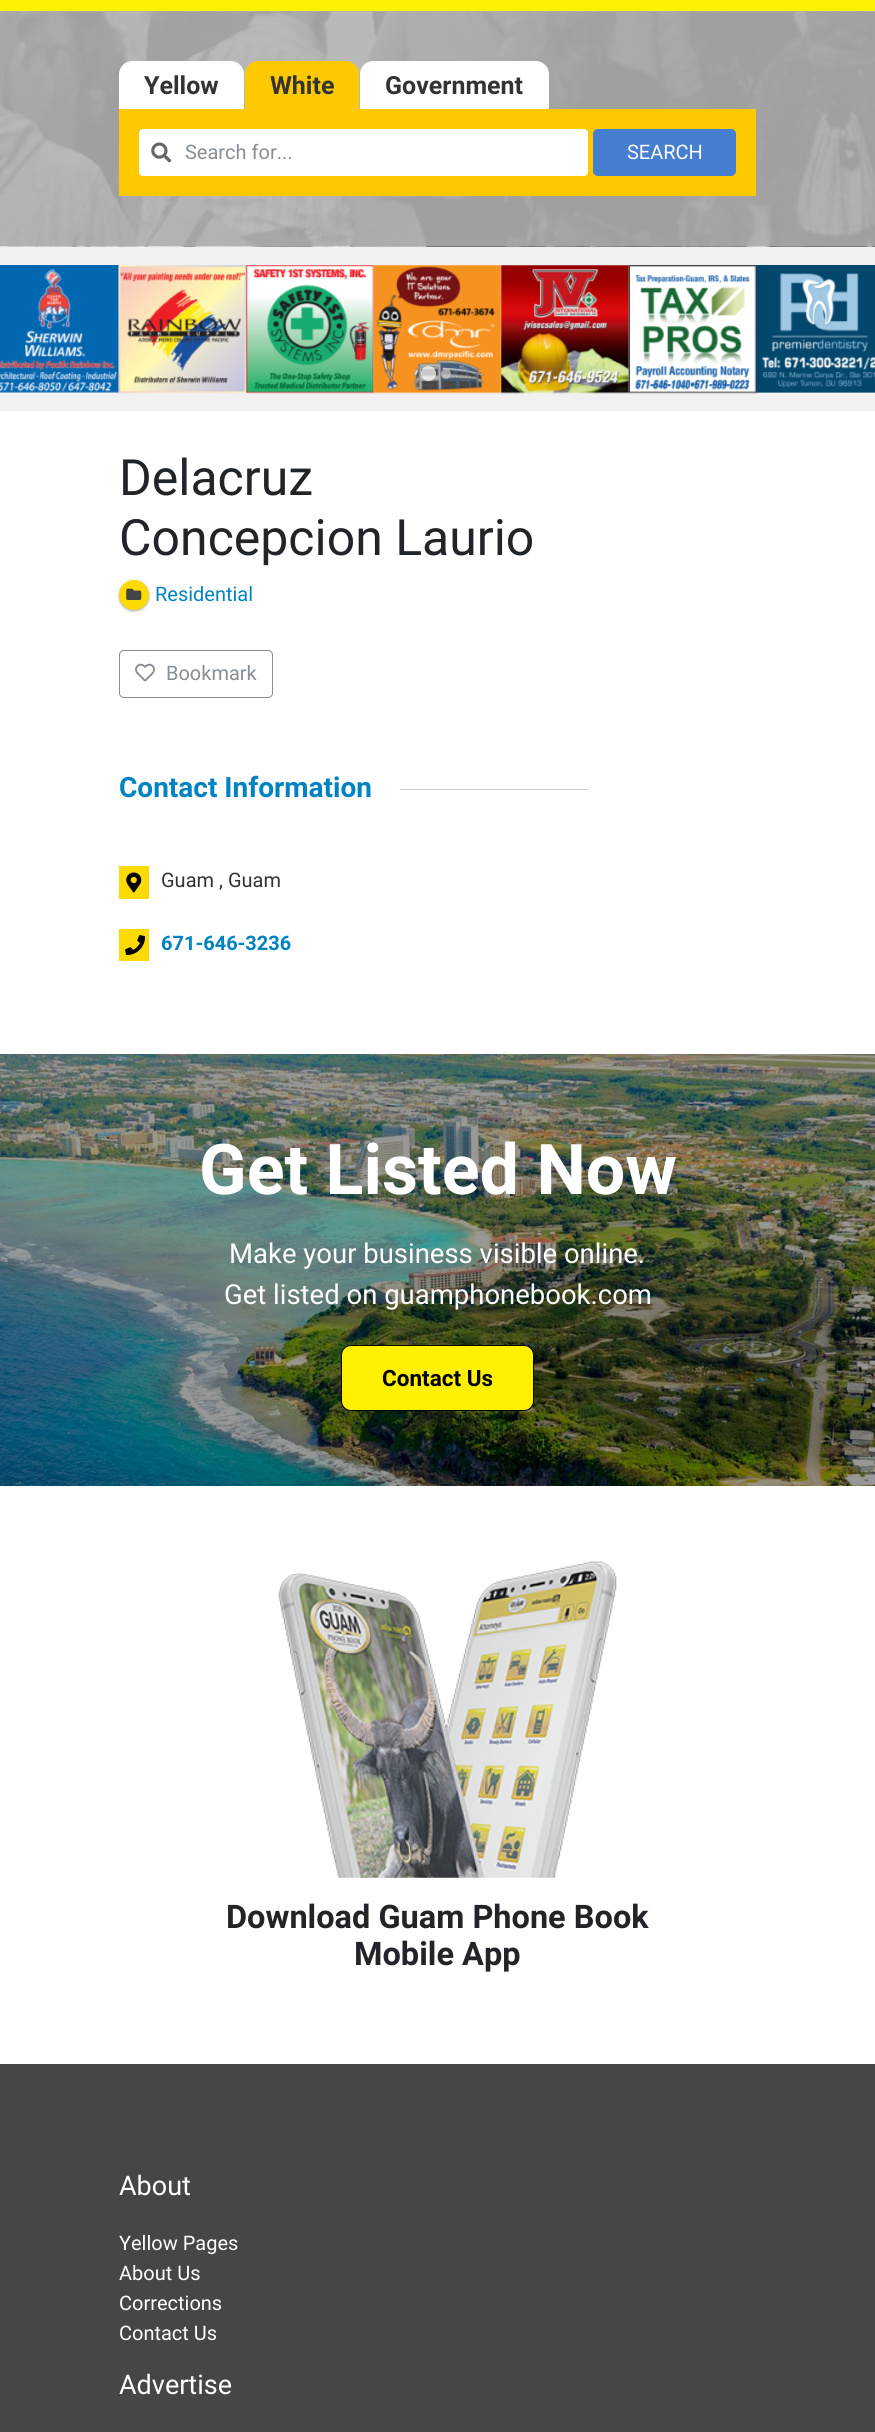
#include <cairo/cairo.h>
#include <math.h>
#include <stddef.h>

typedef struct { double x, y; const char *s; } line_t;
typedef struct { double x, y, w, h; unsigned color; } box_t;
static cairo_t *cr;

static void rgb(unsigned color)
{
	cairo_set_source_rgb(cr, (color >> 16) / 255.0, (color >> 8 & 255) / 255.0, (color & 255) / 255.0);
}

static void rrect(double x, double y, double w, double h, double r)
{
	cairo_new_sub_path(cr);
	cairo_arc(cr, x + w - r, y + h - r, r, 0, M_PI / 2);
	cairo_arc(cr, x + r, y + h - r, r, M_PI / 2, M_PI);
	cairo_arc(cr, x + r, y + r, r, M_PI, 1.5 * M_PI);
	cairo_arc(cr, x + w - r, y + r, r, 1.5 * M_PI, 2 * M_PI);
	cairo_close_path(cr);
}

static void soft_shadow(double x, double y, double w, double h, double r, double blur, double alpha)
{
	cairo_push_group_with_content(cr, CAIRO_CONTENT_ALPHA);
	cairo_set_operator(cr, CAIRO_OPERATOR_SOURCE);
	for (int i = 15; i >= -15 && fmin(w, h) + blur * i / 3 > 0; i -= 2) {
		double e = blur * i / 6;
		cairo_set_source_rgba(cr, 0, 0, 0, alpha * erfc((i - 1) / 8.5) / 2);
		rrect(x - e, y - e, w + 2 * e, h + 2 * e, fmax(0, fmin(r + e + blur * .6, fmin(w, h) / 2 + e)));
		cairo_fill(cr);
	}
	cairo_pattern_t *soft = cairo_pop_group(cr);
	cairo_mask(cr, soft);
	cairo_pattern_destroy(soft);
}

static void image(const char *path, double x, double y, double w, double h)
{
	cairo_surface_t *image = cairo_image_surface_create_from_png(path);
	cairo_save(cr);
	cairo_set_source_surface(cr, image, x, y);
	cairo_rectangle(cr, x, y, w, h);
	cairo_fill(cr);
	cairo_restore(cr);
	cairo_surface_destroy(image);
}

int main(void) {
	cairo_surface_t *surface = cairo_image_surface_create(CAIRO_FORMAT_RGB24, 875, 2432);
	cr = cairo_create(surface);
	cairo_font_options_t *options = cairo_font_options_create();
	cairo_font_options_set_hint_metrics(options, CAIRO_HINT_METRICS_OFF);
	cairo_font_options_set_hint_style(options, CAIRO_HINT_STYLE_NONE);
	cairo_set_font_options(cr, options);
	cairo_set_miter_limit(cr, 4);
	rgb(0xffffff);
	cairo_paint(cr);
	{
		static const box_t items[] = {
			{0, 0, 875, 11, 0xfff101},
			{0, 11, 875, 1, 0xb5b5b5},
			{0, 246, 875, 165, 0xf1f1f1},
		};
		for (size_t i = 0; i < sizeof items / sizeof *items; i++) {
			rgb(items[i].color);
			cairo_rectangle(cr, items[i].x, items[i].y, items[i].w, items[i].h);
			cairo_fill(cr);
		}
	}
	image("img/1.png", 0, 11, 875, 236);
	rgb(0xffffff);
	cairo_new_path(cr);
	cairo_move_to(cr, 132, 61);
	cairo_line_to(cr, 231, 61);
	cairo_curve_to(cr, 238, 61, 244, 67, 244, 74);
	cairo_line_to(cr, 244, 109);
	cairo_line_to(cr, 119, 109);
	cairo_line_to(cr, 119, 74);
	cairo_curve_to(cr, 119, 67, 125, 61, 132, 61);
	cairo_close_path(cr);
	cairo_fill(cr);
	rgb(0xfec901);
	cairo_new_path(cr);
	cairo_move_to(cr, 258, 61);
	cairo_line_to(cr, 346, 61);
	cairo_curve_to(cr, 353, 61, 359, 67, 359, 74);
	cairo_line_to(cr, 359, 109);
	cairo_line_to(cr, 245, 109);
	cairo_line_to(cr, 245, 74);
	cairo_curve_to(cr, 245, 67, 251, 61, 258, 61);
	cairo_close_path(cr);
	cairo_fill(cr);
	rgb(0xffffff);
	cairo_new_path(cr);
	cairo_move_to(cr, 373, 61);
	cairo_line_to(cr, 536, 61);
	cairo_curve_to(cr, 543, 61, 549, 67, 549, 74);
	cairo_line_to(cr, 549, 109);
	cairo_line_to(cr, 360, 109);
	cairo_line_to(cr, 360, 74);
	cairo_curve_to(cr, 360, 67, 366, 61, 373, 61);
	cairo_close_path(cr);
	cairo_fill(cr);
	rgb(0xfec901);
	cairo_rectangle(cr, 119, 109, 637, 87);
	cairo_fill(cr);
	rgb(0xffffff);
	rrect(139, 129, 449, 47, 4);
	cairo_fill(cr);
	image("img/2.png", 151, 142, 21, 21);
	rgb(0x467fcf);
	rrect(593.5, 129.5, 142, 46, 4.5);
	cairo_fill_preserve(cr);
	cairo_set_line_width(cr, 1);
	cairo_stroke(cr);
	image("img/3.png", 0, 265, 119, 128);
	image("img/4.png", 118, 265, 129, 129);
	image("img/5.png", 246, 265, 129, 129);
	image("img/6.png", 373, 265, 129, 129);
	image("img/7.png", 501, 265, 129, 129);
	image("img/8.png", 628, 265, 129, 129);
	image("img/9.png", 756, 265, 119, 128);
	cairo_set_source_rgba(cr, 1, 1, 1, 0.7);
	cairo_arc(cr, 428.5, 373.5, 7.5, 0, 2 * M_PI);
	cairo_fill(cr);
	cairo_set_source_rgba(cr, 0.8, 0.8, 0.8, 0.7);
	cairo_arc(cr, 446, 374, 5, 0, 2 * M_PI);
	cairo_fill(cr);
	rgb(0x000000);
	soft_shadow(119, 581, 30, 30, 15, 1, 0.24);
	soft_shadow(119, 581, 30, 30, 15, 2, 0.12);
	rgb(0xfedb00);
	cairo_arc(cr, 134, 595, 15, 0, 2 * M_PI);
	cairo_fill(cr);
	image("img/10.png", 126, 588, 16, 12);
	rrect(119.5, 650.5, 153, 47, 4.5);
	rgb(0x868e96);
	cairo_stroke(cr);
	image("img/11.png", 135, 663, 20, 19);
	rgb(0xcccccc);
	cairo_rectangle(cr, 400, 789, 188, 1);
	cairo_fill(cr);
	rgb(0xfedb00);
	cairo_rectangle(cr, 119, 866, 30, 33);
	cairo_fill(cr);
	image("img/12.png", 126, 872, 16, 21);
	cairo_rectangle(cr, 119, 929, 30, 32);
	cairo_fill(cr);
	image("img/13.png", 125, 935, 20, 20);
	image("img/14.png", 0, 1054, 875, 432);
	rgb(0xfff101);
	rrect(341.5, 1345.5, 192, 65, 9.5);
	cairo_fill_preserve(cr);
	rgb(0x000000);
	cairo_stroke(cr);
	image("img/15.png", 278, 1561, 339, 317);
	rgb(0x464646);
	cairo_rectangle(cr, 0, 2064, 875, 368);
	cairo_fill(cr);
	cairo_select_font_face(cr, "Roboto", CAIRO_FONT_SLANT_NORMAL, CAIRO_FONT_WEIGHT_BOLD);
	cairo_set_font_size(cr, 25);
	rgb(0x333333);
	{
		static const line_t items[] = {
			{144, 94, "Yellow"},
			{270, 94, "White"},
			{385, 94, "Government"},
		};
		for (size_t i = 0; i < sizeof items / sizeof *items; i++) {
			cairo_move_to(cr, items[i].x, items[i].y);
			cairo_show_text(cr, items[i].s);
		}
	}
	cairo_select_font_face(cr, "Roboto", CAIRO_FONT_SLANT_NORMAL, CAIRO_FONT_WEIGHT_NORMAL);
	cairo_set_font_size(cr, 20);
	rgb(0x868e96);
	cairo_move_to(cr, 185, 159);
	cairo_show_text(cr, "Search for...");
	rgb(0xffffff);
	cairo_move_to(cr, 627, 159);
	cairo_show_text(cr, "SEARCH");
	cairo_set_font_size(cr, 50);
	rgb(0x212529);
	cairo_move_to(cr, 119, 495);
	cairo_show_text(cr, "Delacruz");
	cairo_move_to(cr, 119, 555);
	cairo_show_text(cr, "Concepcion Laurio");
	cairo_set_font_size(cr, 20);
	rgb(0x0083c3);
	cairo_move_to(cr, 155, 601);
	cairo_show_text(cr, "Residential");
	rgb(0x868e96);
	cairo_move_to(cr, 166, 680);
	cairo_show_text(cr, "Bookmark");
	cairo_select_font_face(cr, "Roboto", CAIRO_FONT_SLANT_NORMAL, CAIRO_FONT_WEIGHT_BOLD);
	cairo_set_font_size(cr, 28);
	rgb(0x0083c3);
	cairo_move_to(cr, 119, 797);
	cairo_show_text(cr, "Contact Information");
	cairo_select_font_face(cr, "Roboto", CAIRO_FONT_SLANT_NORMAL, CAIRO_FONT_WEIGHT_NORMAL);
	cairo_set_font_size(cr, 20);
	rgb(0x333333);
	cairo_move_to(cr, 161, 887);
	cairo_show_text(cr, "Guam , Guam");
	cairo_select_font_face(cr, "Roboto", CAIRO_FONT_SLANT_NORMAL, CAIRO_FONT_WEIGHT_BOLD);
	rgb(0x0083c3);
	cairo_move_to(cr, 161, 950);
	cairo_show_text(cr, "671-646-3236");
	cairo_set_font_size(cr, 70);
	rgb(0xffffff);
	cairo_move_to(cr, 199, 1194);
	cairo_show_text(cr, "Get Listed Now");
	cairo_select_font_face(cr, "Roboto", CAIRO_FONT_SLANT_NORMAL, CAIRO_FONT_WEIGHT_NORMAL);
	cairo_set_font_size(cr, 27.5);
	cairo_move_to(cr, 229, 1263);
	cairo_show_text(cr, "Make your business visible online.");
	cairo_move_to(cr, 224, 1304);
	cairo_show_text(cr, "Get listed on guamphonebook.com");
	cairo_select_font_face(cr, "Roboto", CAIRO_FONT_SLANT_NORMAL, CAIRO_FONT_WEIGHT_BOLD);
	cairo_set_font_size(cr, 22.5);
	rgb(0x000000);
	cairo_move_to(cr, 382, 1386);
	cairo_show_text(cr, "Contact Us");
	cairo_set_font_size(cr, 32.5);
	rgb(0x212529);
	cairo_move_to(cr, 226, 1928);
	cairo_show_text(cr, "Download Guam Phone Book");
	cairo_move_to(cr, 354, 1965);
	cairo_show_text(cr, "Mobile App");
	cairo_select_font_face(cr, "Roboto", CAIRO_FONT_SLANT_NORMAL, CAIRO_FONT_WEIGHT_NORMAL);
	cairo_set_font_size(cr, 27);
	rgb(0xffffff);
	cairo_move_to(cr, 119, 2195);
	cairo_show_text(cr, "About");
	cairo_set_font_size(cr, 20);
	{
		static const line_t items[] = {
			{119, 2250, "Yellow Pages"},
			{119, 2280, "About Us"},
			{119, 2310, "Corrections"},
			{119, 2340, "Contact Us"},
		};
		for (size_t i = 0; i < sizeof items / sizeof *items; i++) {
			cairo_move_to(cr, items[i].x, items[i].y);
			cairo_show_text(cr, items[i].s);
		}
	}
	cairo_set_font_size(cr, 27);
	cairo_move_to(cr, 119, 2394);
	cairo_show_text(cr, "Advertise");
	cairo_surface_write_to_png(surface, "page.png");
	cairo_font_options_destroy(options);
	cairo_destroy(cr);
	cairo_surface_destroy(surface);
	return 0;
}
